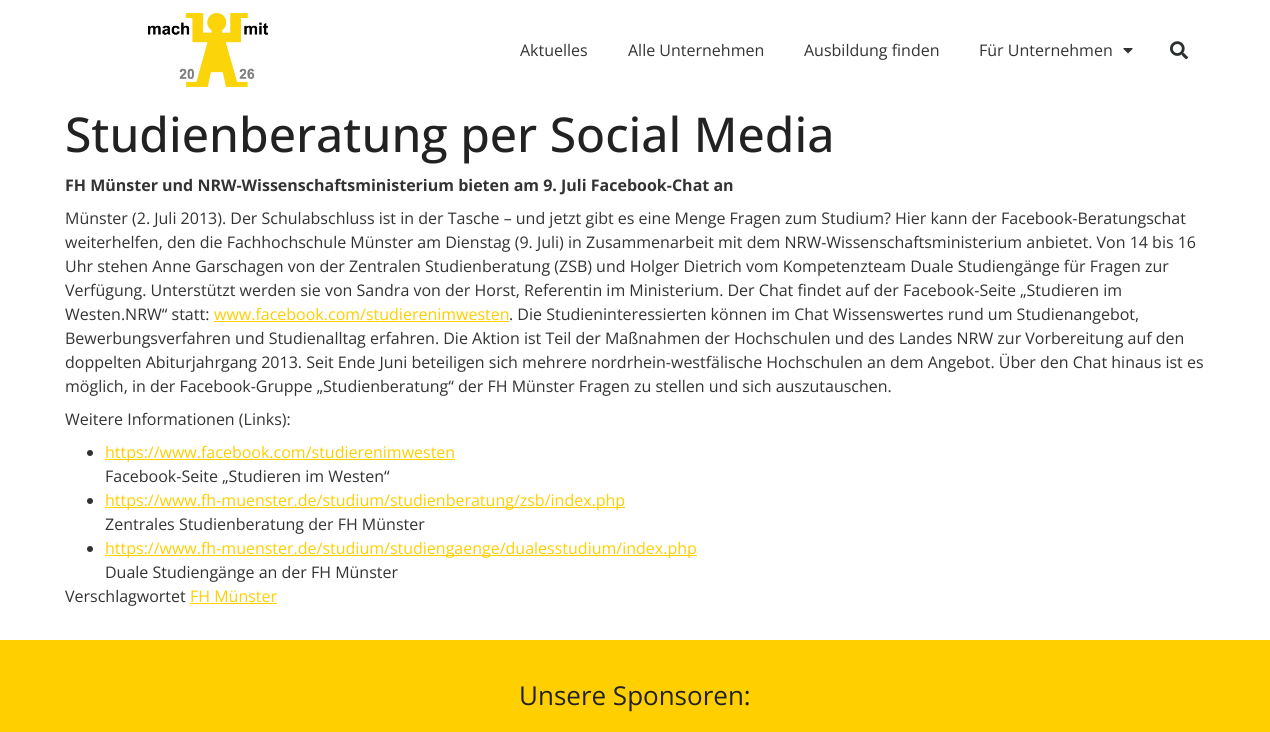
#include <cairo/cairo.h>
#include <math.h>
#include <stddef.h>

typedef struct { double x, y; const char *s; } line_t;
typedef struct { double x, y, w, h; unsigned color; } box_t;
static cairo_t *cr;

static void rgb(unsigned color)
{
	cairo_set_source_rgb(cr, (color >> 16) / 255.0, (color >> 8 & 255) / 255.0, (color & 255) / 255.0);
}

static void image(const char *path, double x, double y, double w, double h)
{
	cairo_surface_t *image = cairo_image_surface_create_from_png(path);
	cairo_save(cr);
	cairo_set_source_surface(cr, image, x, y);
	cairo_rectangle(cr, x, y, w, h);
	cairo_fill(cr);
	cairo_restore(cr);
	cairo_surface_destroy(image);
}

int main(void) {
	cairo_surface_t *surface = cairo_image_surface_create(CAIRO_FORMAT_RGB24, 1270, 732);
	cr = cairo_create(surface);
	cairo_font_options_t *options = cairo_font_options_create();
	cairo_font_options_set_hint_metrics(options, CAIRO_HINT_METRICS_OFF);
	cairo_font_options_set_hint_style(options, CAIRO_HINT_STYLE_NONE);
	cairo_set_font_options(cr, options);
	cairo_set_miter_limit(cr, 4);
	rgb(0xffffff);
	cairo_paint(cr);
	image("img/1.png", 148, 13, 120, 74);
	image("img/2.png", 1123, 48, 10, 6);
	image("img/3.png", 1170, 41, 18, 19);
	rgb(0xffcf00);
	cairo_rectangle(cr, 214, 321, 295, 1);
	cairo_fill(cr);
	rgb(0x333333);
	cairo_arc(cr, 90, 453, 3, 0, 2 * M_PI);
	cairo_fill(cr);
	rgb(0xffcf00);
	cairo_rectangle(cr, 105, 459, 350, 1);
	cairo_fill(cr);
	rgb(0x333333);
	cairo_arc(cr, 90, 501, 3, 0, 2 * M_PI);
	cairo_fill(cr);
	rgb(0xffcf00);
	cairo_rectangle(cr, 105, 507, 520, 1);
	cairo_fill(cr);
	rgb(0x333333);
	cairo_arc(cr, 90, 549, 3, 0, 2 * M_PI);
	cairo_fill(cr);
	{
		static const box_t items[] = {
			{105, 555, 592, 1, 0xffcf00},
			{190, 603, 87, 1, 0xffcf00},
			{0, 640, 1270, 92, 0xffcf00},
		};
		for (size_t i = 0; i < sizeof items / sizeof *items; i++) {
			rgb(items[i].color);
			cairo_rectangle(cr, items[i].x, items[i].y, items[i].w, items[i].h);
			cairo_fill(cr);
		}
	}
	cairo_select_font_face(cr, "Open Sans", CAIRO_FONT_SLANT_NORMAL, CAIRO_FONT_WEIGHT_NORMAL);
	cairo_set_font_size(cr, 16);
	rgb(0x333333);
	{
		static const line_t items[] = {
			{520, 56, "Aktuelles"},
			{628, 56, "Alle Unternehmen"},
			{804, 56, "Ausbildung finden"},
			{979, 56, "Für Unternehmen"},
		};
		for (size_t i = 0; i < sizeof items / sizeof *items; i++) {
			cairo_move_to(cr, items[i].x, items[i].y);
			cairo_show_text(cr, items[i].s);
		}
	}
	cairo_select_font_face(cr, "Open Sans Medium", CAIRO_FONT_SLANT_NORMAL, CAIRO_FONT_WEIGHT_NORMAL);
	cairo_set_font_size(cr, 48);
	rgb(0x222222);
	cairo_move_to(cr, 65, 152);
	cairo_show_text(cr, "Studienberatung per Social Media");
	cairo_select_font_face(cr, "Open Sans", CAIRO_FONT_SLANT_NORMAL, CAIRO_FONT_WEIGHT_BOLD);
	cairo_set_font_size(cr, 16);
	rgb(0x333333);
	cairo_move_to(cr, 65, 191);
	cairo_show_text(cr, "FH Münster und NRW-Wissenschaftsministerium bieten am 9. Juli Facebook-Chat an");
	cairo_select_font_face(cr, "Open Sans", CAIRO_FONT_SLANT_NORMAL, CAIRO_FONT_WEIGHT_NORMAL);
	{
		static const line_t items[] = {
			{65, 224, "Münster (2. Juli 2013). Der Schulabschluss ist in der Tasche – und jetzt gibt es eine Menge Fragen zum Studium? Hier kann der Facebook-Beratungschat"},
			{65, 248, "weiterhelfen, den die Fachhochschule Münster am Dienstag (9. Juli) in Zusammenarbeit mit dem NRW-Wissenschaftsministerium anbietet. Von 14 bis 16"},
			{65, 272, "Uhr stehen Anne Garschagen von der Zentralen Studienberatung (ZSB) und Holger Dietrich vom Kompetenzteam Duale Studiengänge für Fragen zur"},
			{65, 296, "Verfügung. Unterstützt werden sie von Sandra von der Horst, Referentin im Ministerium. Der Chat findet auf der Facebook-Seite „Studieren im"},
			{65, 320, "Westen.NRW“ statt:"},
		};
		for (size_t i = 0; i < sizeof items / sizeof *items; i++) {
			cairo_move_to(cr, items[i].x, items[i].y);
			cairo_show_text(cr, items[i].s);
		}
	}
	rgb(0xffcf00);
	cairo_move_to(cr, 214, 320);
	cairo_show_text(cr, "www.facebook.com/studierenimwesten");
	rgb(0x333333);
	{
		static const line_t items[] = {
			{509, 320, ". Die Studieninteressierten können im Chat Wissenswertes rund um Studienangebot,"},
			{65, 344, "Bewerbungsverfahren und Studienalltag erfahren. Die Aktion ist Teil der Maßnahmen der Hochschulen und des Landes NRW zur Vorbereitung auf den"},
			{65, 368, "doppelten Abiturjahrgang 2013. Seit Ende Juni beteiligen sich mehrere nordrhein-westfälische Hochschulen an dem Angebot. Über den Chat hinaus ist es"},
			{65, 392, "möglich, in der Facebook-Gruppe „Studienberatung“ der FH Münster Fragen zu stellen und sich auszutauschen."},
			{65, 425, "Weitere Informationen (Links):"},
		};
		for (size_t i = 0; i < sizeof items / sizeof *items; i++) {
			cairo_move_to(cr, items[i].x, items[i].y);
			cairo_show_text(cr, items[i].s);
		}
	}
	rgb(0xffcf00);
	cairo_move_to(cr, 105, 458);
	cairo_show_text(cr, "https://www.facebook.com/studierenimwesten");
	rgb(0x333333);
	cairo_move_to(cr, 105, 482);
	cairo_show_text(cr, "Facebook-Seite „Studieren im Westen“");
	rgb(0xffcf00);
	cairo_move_to(cr, 105, 506);
	cairo_show_text(cr, "https://www.fh-muenster.de/studium/studienberatung/zsb/index.php");
	rgb(0x333333);
	cairo_move_to(cr, 105, 530);
	cairo_show_text(cr, "Zentrales Studienberatung der FH Münster");
	rgb(0xffcf00);
	cairo_move_to(cr, 105, 554);
	cairo_show_text(cr, "https://www.fh-muenster.de/studium/studiengaenge/dualesstudium/index.php");
	rgb(0x333333);
	cairo_move_to(cr, 105, 578);
	cairo_show_text(cr, "Duale Studiengänge an der FH Münster");
	cairo_move_to(cr, 65, 602);
	cairo_show_text(cr, "Verschlagwortet");
	rgb(0xffcf00);
	cairo_move_to(cr, 190, 602);
	cairo_show_text(cr, "FH Münster");
	cairo_set_font_size(cr, 26);
	rgb(0x222222);
	cairo_move_to(cr, 519, 705);
	cairo_show_text(cr, "Unsere Sponsoren:");
	cairo_surface_write_to_png(surface, "page.png");
	cairo_font_options_destroy(options);
	cairo_destroy(cr);
	cairo_surface_destroy(surface);
	return 0;
}
